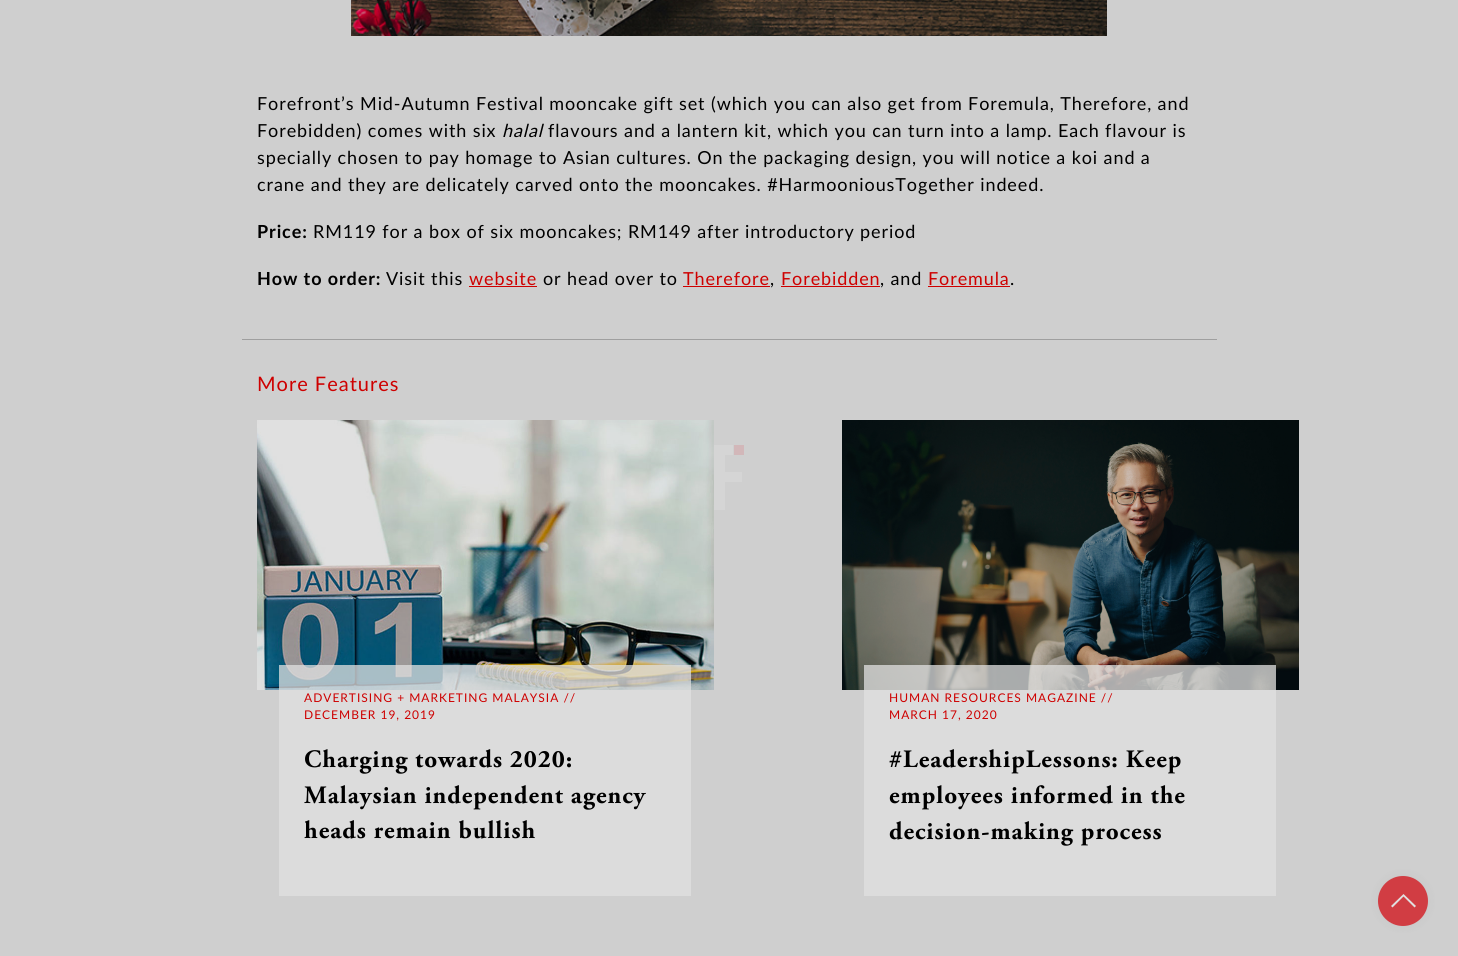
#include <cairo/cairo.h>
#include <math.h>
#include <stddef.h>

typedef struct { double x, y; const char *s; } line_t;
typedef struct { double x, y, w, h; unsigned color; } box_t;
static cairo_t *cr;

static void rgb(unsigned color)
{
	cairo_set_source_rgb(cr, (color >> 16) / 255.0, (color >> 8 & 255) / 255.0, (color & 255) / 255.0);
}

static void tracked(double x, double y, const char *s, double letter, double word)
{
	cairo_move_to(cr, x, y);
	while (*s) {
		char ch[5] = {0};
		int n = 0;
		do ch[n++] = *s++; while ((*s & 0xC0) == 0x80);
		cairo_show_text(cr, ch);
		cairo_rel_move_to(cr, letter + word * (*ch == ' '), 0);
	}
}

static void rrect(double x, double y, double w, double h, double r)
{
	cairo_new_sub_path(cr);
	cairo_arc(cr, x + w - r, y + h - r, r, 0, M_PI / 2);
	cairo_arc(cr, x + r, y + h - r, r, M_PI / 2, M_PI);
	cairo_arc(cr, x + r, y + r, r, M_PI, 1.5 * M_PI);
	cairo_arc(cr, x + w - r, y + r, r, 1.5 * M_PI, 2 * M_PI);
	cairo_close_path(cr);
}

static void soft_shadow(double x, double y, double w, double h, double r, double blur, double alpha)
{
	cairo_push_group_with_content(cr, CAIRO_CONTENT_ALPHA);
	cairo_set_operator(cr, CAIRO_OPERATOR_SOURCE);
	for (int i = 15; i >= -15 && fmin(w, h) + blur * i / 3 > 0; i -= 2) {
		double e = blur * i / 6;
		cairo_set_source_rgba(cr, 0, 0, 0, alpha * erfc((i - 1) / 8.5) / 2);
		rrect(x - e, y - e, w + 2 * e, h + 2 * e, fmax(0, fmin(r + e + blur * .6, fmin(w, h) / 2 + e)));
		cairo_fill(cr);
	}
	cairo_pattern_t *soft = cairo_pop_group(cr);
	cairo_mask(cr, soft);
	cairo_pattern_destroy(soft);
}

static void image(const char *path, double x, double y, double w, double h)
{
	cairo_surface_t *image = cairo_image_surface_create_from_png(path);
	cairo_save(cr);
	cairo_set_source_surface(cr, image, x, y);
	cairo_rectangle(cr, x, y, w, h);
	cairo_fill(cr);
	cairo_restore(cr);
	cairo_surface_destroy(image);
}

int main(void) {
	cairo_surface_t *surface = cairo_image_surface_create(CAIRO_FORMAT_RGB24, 1458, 956);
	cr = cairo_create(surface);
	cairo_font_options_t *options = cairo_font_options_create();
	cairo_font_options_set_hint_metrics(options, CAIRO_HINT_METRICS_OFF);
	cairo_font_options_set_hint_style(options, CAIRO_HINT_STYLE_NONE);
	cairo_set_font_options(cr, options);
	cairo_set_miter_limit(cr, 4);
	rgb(0xcfcfcf);
	cairo_paint(cr);
	image("img/1.png", 351, 0, 756, 36);
	{
		static const box_t items[] = {
			{469, 286, 68, 1, 0xce0000},
			{683, 286, 87, 1, 0xce0000},
			{781, 286, 99, 1, 0xce0000},
			{928, 286, 82, 1, 0xce0000},
			{242, 339, 975, 1, 0x9f9f9f},
		};
		for (size_t i = 0; i < sizeof items / sizeof *items; i++) {
			rgb(items[i].color);
			cairo_rectangle(cr, items[i].x, items[i].y, items[i].w, items[i].h);
			cairo_fill(cr);
		}
	}
	image("img/2.png", 257, 420, 457, 270);
	cairo_set_source_rgba(cr, 0.878, 0.878, 0.878, 0.75);
	cairo_rectangle(cr, 279, 665, 412, 231);
	cairo_fill(cr);
	image("img/3.png", 842, 420, 457, 270);
	cairo_rectangle(cr, 864, 665, 412, 231);
	cairo_fill(cr);
	image("img/4.png", 714, 445, 30, 65);
	rgb(0x000000);
	soft_shadow(1378, 876, 50, 50, 25, 5, 0.05);
	rgb(0xd13d43);
	cairo_arc(cr, 1403, 901, 25, 0, 2 * M_PI);
	cairo_fill(cr);
	rgb(0xe0e0e0);
	cairo_new_path(cr);
	cairo_move_to(cr, 1392.5, 907.5);
	cairo_line_to(cr, 1403.5, 896.5);
	cairo_line_to(cr, 1414.5, 907.5);
	cairo_line_to(cr, 1416, 906);
	cairo_line_to(cr, 1403.5, 894);
	cairo_line_to(cr, 1391, 906);
	cairo_close_path(cr);
	cairo_fill(cr);
	cairo_select_font_face(cr, "Lato", CAIRO_FONT_SLANT_NORMAL, CAIRO_FONT_WEIGHT_NORMAL);
	cairo_set_font_size(cr, 18);
	rgb(0x000000);
	tracked(257, 110, "Forefront’s Mid-Autumn Festival mooncake gift set (which you can also get from Foremula, Therefore, and", 0.9, 0);
	tracked(257, 137, "Forebidden) comes with six", 0.9, 0);
	cairo_select_font_face(cr, "Lato", CAIRO_FONT_SLANT_ITALIC, CAIRO_FONT_WEIGHT_NORMAL);
	tracked(502, 137, "halal", 0.9, 0);
	cairo_select_font_face(cr, "Lato", CAIRO_FONT_SLANT_NORMAL, CAIRO_FONT_WEIGHT_NORMAL);
	{
		static const line_t items[] = {
			{548, 137, "flavours and a lantern kit, which you can turn into a lamp. Each flavour is"},
			{257, 164, "specially chosen to pay homage to Asian cultures. On the packaging design, you will notice a koi and a"},
			{257, 191, "crane and they are delicately carved onto the mooncakes. #HarmooniousTogether indeed."},
		};
		for (size_t i = 0; i < sizeof items / sizeof *items; i++) {
			tracked(items[i].x, items[i].y, items[i].s, 0.9, 0);
		}
	}
	cairo_select_font_face(cr, "Lato", CAIRO_FONT_SLANT_NORMAL, CAIRO_FONT_WEIGHT_BOLD);
	tracked(257, 238, "Price:", 0.9, 0);
	cairo_select_font_face(cr, "Lato", CAIRO_FONT_SLANT_NORMAL, CAIRO_FONT_WEIGHT_NORMAL);
	tracked(313, 238, "RM119 for a box of six mooncakes; RM149 after introductory period", 0.9, 0);
	cairo_select_font_face(cr, "Lato", CAIRO_FONT_SLANT_NORMAL, CAIRO_FONT_WEIGHT_BOLD);
	tracked(257, 285, "How to order:", 0.9, 0);
	cairo_select_font_face(cr, "Lato", CAIRO_FONT_SLANT_NORMAL, CAIRO_FONT_WEIGHT_NORMAL);
	tracked(386, 285, "Visit this", 0.9, 0);
	rgb(0xce0000);
	tracked(469, 285, "website", 0.9, 0);
	rgb(0x000000);
	tracked(543, 285, "or head over to", 0.9, 0);
	rgb(0xce0000);
	tracked(683, 285, "Therefore", 0.9, 0);
	rgb(0x000000);
	tracked(770, 285, ",", 0.9, 0);
	rgb(0xce0000);
	tracked(781, 285, "Forebidden", 0.9, 0);
	rgb(0x000000);
	tracked(880, 285, ", and", 0.9, 0);
	rgb(0xce0000);
	tracked(928, 285, "Foremula", 0.9, 0);
	rgb(0x000000);
	tracked(1010, 285, ".", 0.9, 0);
	cairo_set_font_size(cr, 20);
	rgb(0xce0000);
	tracked(257, 391, "More Features", 1, 0);
	cairo_set_font_size(cr, 12);
	tracked(304, 702, "ADVERTISING + MARKETING MALAYSIA //", 1, 0);
	tracked(304, 719, "DECEMBER 19, 2019", 1, 0);
	cairo_select_font_face(cr, "Adobe Garamond", CAIRO_FONT_SLANT_NORMAL, CAIRO_FONT_WEIGHT_BOLD);
	cairo_set_font_size(cr, 25);
	rgb(0x000000);
	{
		static const line_t items[] = {
			{304, 767, "Charging towards 2020:"},
			{304, 803, "Malaysian independent agency"},
			{304, 838, "heads remain bullish"},
		};
		for (size_t i = 0; i < sizeof items / sizeof *items; i++) {
			tracked(items[i].x, items[i].y, items[i].s, 1, 0);
		}
	}
	cairo_select_font_face(cr, "Lato", CAIRO_FONT_SLANT_NORMAL, CAIRO_FONT_WEIGHT_NORMAL);
	cairo_set_font_size(cr, 12);
	rgb(0xce0000);
	tracked(889, 702, "HUMAN RESOURCES MAGAZINE //", 1, 0);
	tracked(889, 719, "MARCH 17, 2020", 1, 0);
	cairo_select_font_face(cr, "Adobe Garamond", CAIRO_FONT_SLANT_NORMAL, CAIRO_FONT_WEIGHT_BOLD);
	cairo_set_font_size(cr, 25);
	rgb(0x000000);
	{
		static const line_t items[] = {
			{889, 767, "#LeadershipLessons: Keep"},
			{889, 803, "employees informed in the"},
			{889, 839, "decision-making process"},
		};
		for (size_t i = 0; i < sizeof items / sizeof *items; i++) {
			tracked(items[i].x, items[i].y, items[i].s, 1, 0);
		}
	}
	cairo_surface_write_to_png(surface, "page.png");
	cairo_font_options_destroy(options);
	cairo_destroy(cr);
	cairo_surface_destroy(surface);
	return 0;
}
